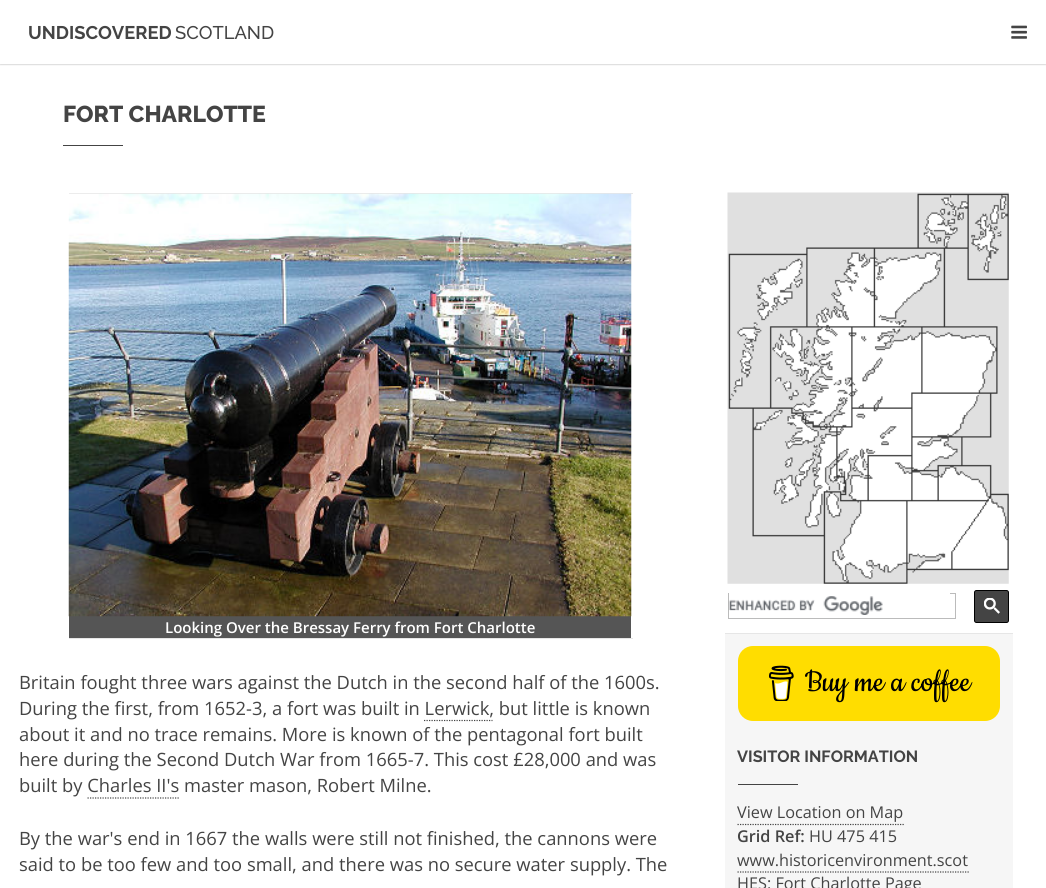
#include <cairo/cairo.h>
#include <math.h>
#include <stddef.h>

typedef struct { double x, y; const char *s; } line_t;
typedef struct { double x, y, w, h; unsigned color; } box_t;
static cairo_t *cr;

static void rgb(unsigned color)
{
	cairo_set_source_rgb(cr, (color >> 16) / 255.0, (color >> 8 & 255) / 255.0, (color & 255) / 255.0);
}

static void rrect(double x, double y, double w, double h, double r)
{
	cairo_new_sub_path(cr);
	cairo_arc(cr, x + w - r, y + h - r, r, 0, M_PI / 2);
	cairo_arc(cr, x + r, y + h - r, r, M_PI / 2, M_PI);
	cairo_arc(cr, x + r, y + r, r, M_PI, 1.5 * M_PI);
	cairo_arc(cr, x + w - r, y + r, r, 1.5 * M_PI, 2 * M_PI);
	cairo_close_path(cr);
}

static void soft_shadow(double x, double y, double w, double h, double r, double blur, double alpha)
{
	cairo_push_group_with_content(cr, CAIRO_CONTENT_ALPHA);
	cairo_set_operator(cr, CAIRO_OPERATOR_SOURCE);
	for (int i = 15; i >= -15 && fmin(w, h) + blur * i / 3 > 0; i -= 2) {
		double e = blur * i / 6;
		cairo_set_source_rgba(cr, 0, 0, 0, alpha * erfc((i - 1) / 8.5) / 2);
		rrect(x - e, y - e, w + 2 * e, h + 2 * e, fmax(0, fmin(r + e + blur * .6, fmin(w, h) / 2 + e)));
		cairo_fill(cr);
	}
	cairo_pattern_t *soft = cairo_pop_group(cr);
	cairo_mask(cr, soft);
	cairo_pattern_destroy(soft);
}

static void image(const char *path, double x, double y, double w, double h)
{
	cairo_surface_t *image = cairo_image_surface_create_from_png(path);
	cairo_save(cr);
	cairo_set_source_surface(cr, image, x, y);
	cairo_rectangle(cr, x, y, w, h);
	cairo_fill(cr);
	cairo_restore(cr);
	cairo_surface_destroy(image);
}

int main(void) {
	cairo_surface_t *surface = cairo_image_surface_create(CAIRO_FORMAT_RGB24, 1046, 888);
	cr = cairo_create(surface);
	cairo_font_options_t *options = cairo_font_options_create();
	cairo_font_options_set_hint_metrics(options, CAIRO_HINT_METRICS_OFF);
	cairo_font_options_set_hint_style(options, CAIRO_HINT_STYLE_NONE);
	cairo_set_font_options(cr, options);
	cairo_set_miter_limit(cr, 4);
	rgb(0xffffff);
	cairo_paint(cr);
	rgb(0x000000);
	soft_shadow(0, 0, 1046, 64, 0, 1, 0.35);
	rgb(0xffffff);
	cairo_rectangle(cr, 0, 0, 1046, 64);
	cairo_fill(cr);
	image("img/1.png", 1011, 25, 16, 14);
	{
		static const box_t items[] = {
			{63, 145, 60, 1, 0x444444},
			{69, 193, 564, 1, 0xe6e6e6},
			{69, 638, 564, 1, 0xe6e6e6},
			{69, 616, 562, 22, 0x555555},
		};
		for (size_t i = 0; i < sizeof items / sizeof *items; i++) {
			rgb(items[i].color);
			cairo_rectangle(cr, items[i].x, items[i].y, items[i].w, items[i].h);
			cairo_fill(cr);
		}
	}
	image("img/2.png", 68, 193, 564, 424);
	cairo_new_path(cr);
	cairo_move_to(cr, 424, 720.5);
	cairo_line_to(cr, 492.5, 720.5);
	rgb(0x444444);
	cairo_set_line_width(cr, 1.2);
	cairo_set_dash(cr, (double[]){1.25, 1.25}, 2, 0);
	cairo_stroke(cr);
	cairo_new_path(cr);
	cairo_move_to(cr, 87.5, 798);
	cairo_line_to(cr, 179, 798);
	cairo_stroke(cr);
	image("img/3.png", 727, 192, 282, 392);
	cairo_rectangle(cr, 728.5, 593.5, 227, 25);
	rgb(0xbbbbbb);
	cairo_set_line_width(cr, 1);
	cairo_set_dash(cr, NULL, 0, 0);
	cairo_stroke(cr);
	rgb(0xffffff);
	cairo_rectangle(cr, 729, 593, 221, 1);
	cairo_fill(cr);
	image("img/4.png", 728, 596, 155, 19);
	rgb(0x444444);
	rrect(974.5, 590.5, 34, 32, 2);
	cairo_fill_preserve(cr);
	rgb(0x000000);
	cairo_stroke(cr);
	image("img/5.png", 984, 598, 16, 16);
	rgb(0xf6f6f6);
	cairo_rectangle(cr, 725, 634, 288, 254);
	cairo_fill(cr);
	rgb(0xe6e6e6);
	cairo_rectangle(cr, 725, 633, 288, 1);
	cairo_fill(cr);
	rgb(0xffdd00);
	rrect(738, 646, 262, 75, 15);
	cairo_fill(cr);
	image("img/6.png", 769, 665, 25, 36);
	rgb(0x444444);
	cairo_rectangle(cr, 738, 784, 60, 1);
	cairo_fill(cr);
	cairo_new_path(cr);
	cairo_move_to(cr, 737.5, 824.5);
	cairo_line_to(cr, 904, 824.5);
	cairo_set_line_width(cr, 1.2);
	cairo_set_dash(cr, (double[]){1.25, 1.25}, 2, 0);
	cairo_stroke(cr);
	cairo_new_path(cr);
	cairo_move_to(cr, 737.5, 872);
	cairo_line_to(cr, 969, 872);
	cairo_stroke(cr);
	cairo_select_font_face(cr, "Raleway", CAIRO_FONT_SLANT_NORMAL, CAIRO_FONT_WEIGHT_BOLD);
	cairo_set_font_size(cr, 18.35);
	cairo_move_to(cr, 28, 39);
	cairo_show_text(cr, "UNDISCOVERED");
	cairo_select_font_face(cr, "Raleway Medium", CAIRO_FONT_SLANT_NORMAL, CAIRO_FONT_WEIGHT_NORMAL);
	cairo_move_to(cr, 175, 39);
	cairo_show_text(cr, "SCOTLAND");
	cairo_select_font_face(cr, "Raleway ExtraBold", CAIRO_FONT_SLANT_NORMAL, CAIRO_FONT_WEIGHT_NORMAL);
	cairo_set_font_size(cr, 23);
	cairo_move_to(cr, 63, 122);
	cairo_show_text(cr, "FORT CHARLOTTE");
	cairo_select_font_face(cr, "Open Sans SemiBold", CAIRO_FONT_SLANT_NORMAL, CAIRO_FONT_WEIGHT_NORMAL);
	cairo_set_font_size(cr, 15);
	rgb(0xffffff);
	cairo_move_to(cr, 165, 633);
	cairo_show_text(cr, "Looking Over the Bressay Ferry from Fort Charlotte");
	cairo_select_font_face(cr, "Open Sans", CAIRO_FONT_SLANT_NORMAL, CAIRO_FONT_WEIGHT_NORMAL);
	cairo_set_font_size(cr, 18.35);
	rgb(0x444444);
	{
		static const line_t items[] = {
			{19, 689, "Britain fought three wars against the Dutch in the second half of the 1600s."},
			{19, 715, "During the first, from 1652-3, a fort was built in Lerwick, but little is known"},
			{19, 741, "about it and no trace remains. More is known of the pentagonal fort built"},
			{19, 766, "here during the Second Dutch War from 1665-7. This cost £28,000 and was"},
			{19, 792, "built by Charles II's master mason, Robert Milne."},
			{19, 845, "By the war's end in 1667 the walls were still not finished, the cannons were"},
			{19, 871, "said to be too few and too small, and there was no secure water supply. The"},
		};
		for (size_t i = 0; i < sizeof items / sizeof *items; i++) {
			cairo_move_to(cr, items[i].x, items[i].y);
			cairo_show_text(cr, items[i].s);
		}
	}
	cairo_select_font_face(cr, "Cookie", CAIRO_FONT_SLANT_NORMAL, CAIRO_FONT_WEIGHT_NORMAL);
	cairo_set_font_size(cr, 35);
	rgb(0x000000);
	cairo_move_to(cr, 805, 691);
	cairo_show_text(cr, "Buy me a coffee");
	cairo_select_font_face(cr, "Raleway", CAIRO_FONT_SLANT_NORMAL, CAIRO_FONT_WEIGHT_BOLD);
	cairo_set_font_size(cr, 16.25);
	rgb(0x444444);
	cairo_move_to(cr, 737, 762);
	cairo_show_text(cr, "VISITOR INFORMATION");
	cairo_select_font_face(cr, "Open Sans", CAIRO_FONT_SLANT_NORMAL, CAIRO_FONT_WEIGHT_NORMAL);
	cairo_move_to(cr, 737, 818);
	cairo_show_text(cr, "View Location on Map");
	cairo_select_font_face(cr, "Open Sans SemiBold", CAIRO_FONT_SLANT_NORMAL, CAIRO_FONT_WEIGHT_NORMAL);
	cairo_move_to(cr, 737, 842);
	cairo_show_text(cr, "Grid Ref:");
	cairo_select_font_face(cr, "Open Sans", CAIRO_FONT_SLANT_NORMAL, CAIRO_FONT_WEIGHT_NORMAL);
	{
		static const line_t items[] = {
			{809, 842, "HU 475 415"},
			{737, 866, "www.historicenvironment.scot"},
			{737, 889, "HES: Fort Charlotte Page"},
		};
		for (size_t i = 0; i < sizeof items / sizeof *items; i++) {
			cairo_move_to(cr, items[i].x, items[i].y);
			cairo_show_text(cr, items[i].s);
		}
	}
	cairo_surface_write_to_png(surface, "page.png");
	cairo_font_options_destroy(options);
	cairo_destroy(cr);
	cairo_surface_destroy(surface);
	return 0;
}
